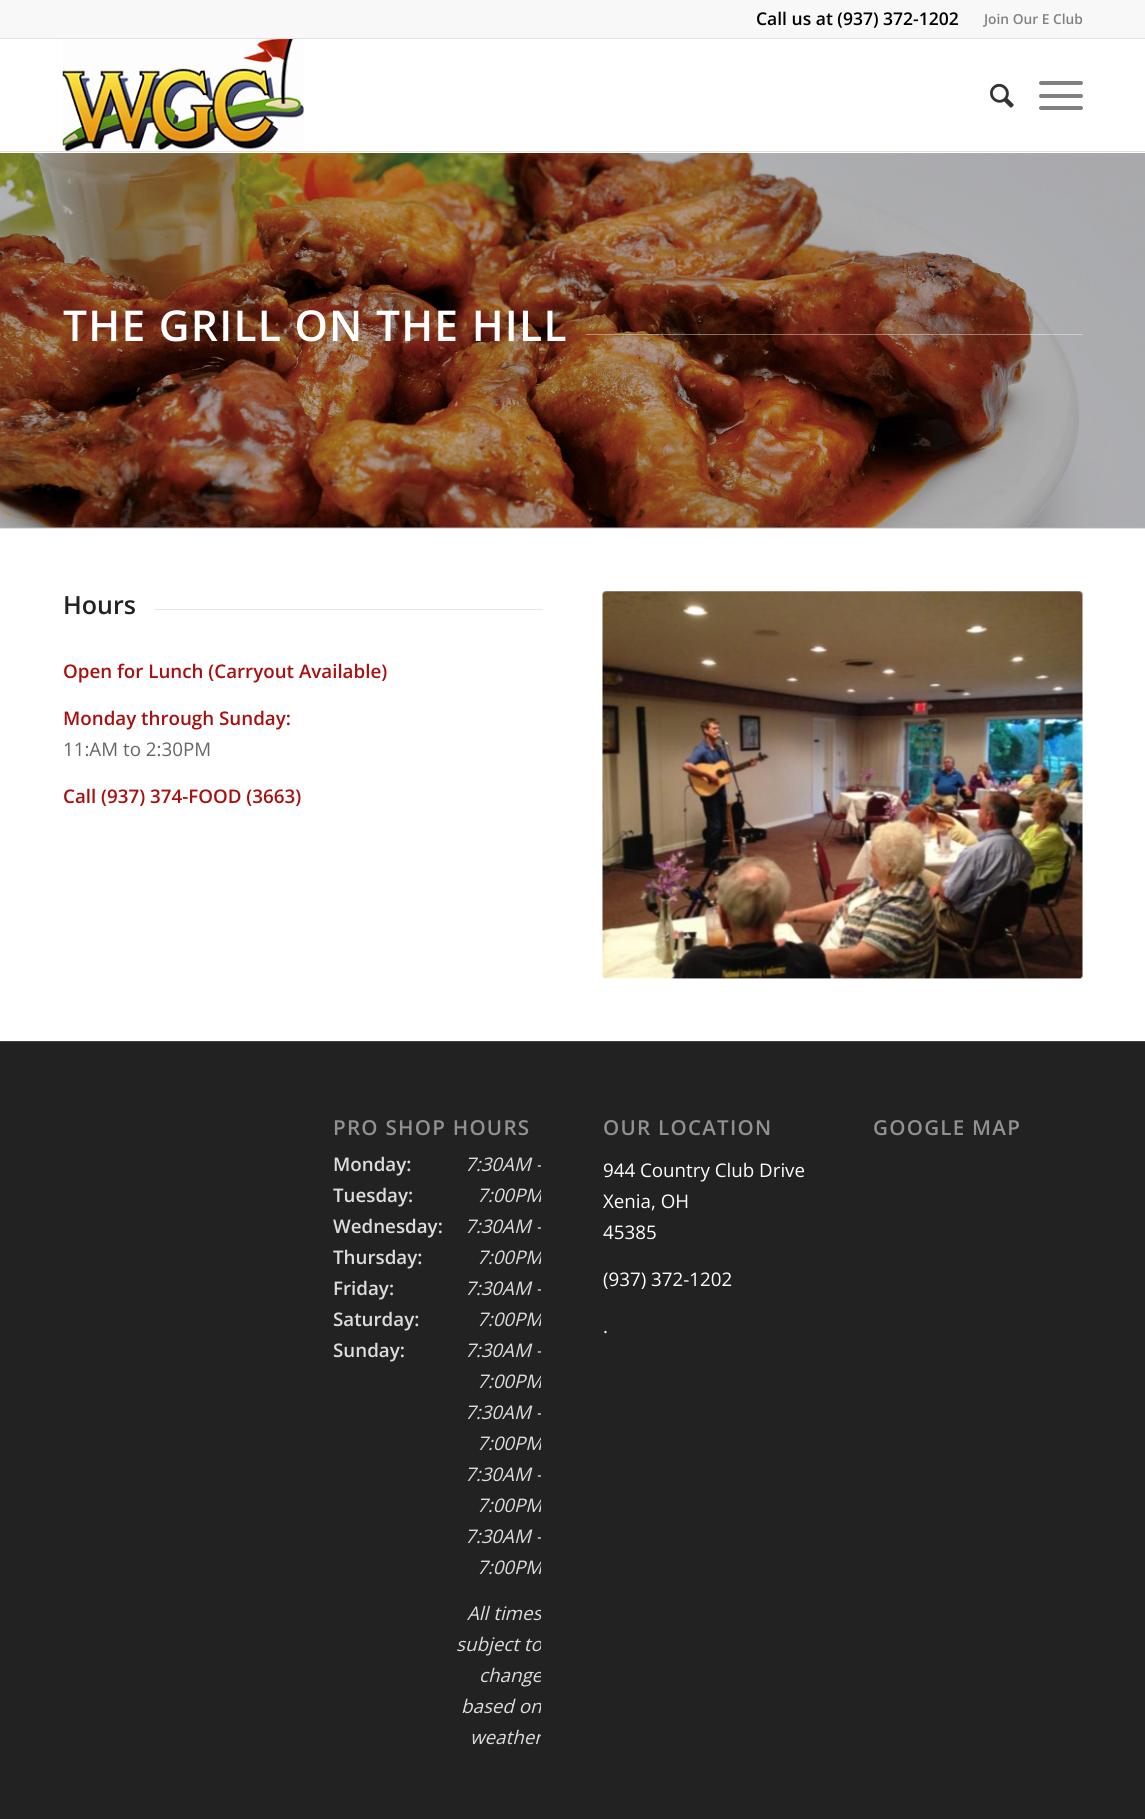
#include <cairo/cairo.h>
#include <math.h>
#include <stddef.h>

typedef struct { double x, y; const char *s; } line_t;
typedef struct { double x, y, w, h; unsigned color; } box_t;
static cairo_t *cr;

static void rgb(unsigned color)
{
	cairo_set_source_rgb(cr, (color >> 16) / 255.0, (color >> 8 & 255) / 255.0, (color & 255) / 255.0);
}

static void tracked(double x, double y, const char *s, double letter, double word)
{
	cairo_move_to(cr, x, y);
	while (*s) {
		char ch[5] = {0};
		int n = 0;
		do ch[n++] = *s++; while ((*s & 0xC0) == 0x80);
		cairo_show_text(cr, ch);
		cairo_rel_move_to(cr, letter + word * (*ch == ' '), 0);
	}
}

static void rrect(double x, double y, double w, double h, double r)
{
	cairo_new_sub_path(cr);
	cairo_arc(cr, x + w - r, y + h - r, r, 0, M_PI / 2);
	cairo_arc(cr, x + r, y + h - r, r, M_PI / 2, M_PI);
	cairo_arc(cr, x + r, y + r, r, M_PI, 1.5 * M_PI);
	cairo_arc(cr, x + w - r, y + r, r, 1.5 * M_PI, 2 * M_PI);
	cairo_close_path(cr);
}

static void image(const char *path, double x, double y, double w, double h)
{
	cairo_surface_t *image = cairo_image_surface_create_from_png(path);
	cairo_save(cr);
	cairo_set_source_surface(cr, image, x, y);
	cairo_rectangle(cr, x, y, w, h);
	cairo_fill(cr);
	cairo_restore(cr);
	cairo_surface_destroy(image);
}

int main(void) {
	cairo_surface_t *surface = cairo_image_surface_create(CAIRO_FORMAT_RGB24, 1145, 1819);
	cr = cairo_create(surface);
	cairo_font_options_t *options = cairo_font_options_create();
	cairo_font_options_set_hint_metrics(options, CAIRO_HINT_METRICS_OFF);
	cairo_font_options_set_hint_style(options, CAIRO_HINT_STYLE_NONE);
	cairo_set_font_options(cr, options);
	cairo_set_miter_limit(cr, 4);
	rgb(0xffffff);
	cairo_paint(cr);
	{
		static const box_t items[] = {
			{0, 0, 1145, 38, 0xf8f8f8},
			{0, 38, 1145, 1, 0xe1e1e1},
			{0, 151, 1145, 1, 0xe1e1e1},
		};
		for (size_t i = 0; i < sizeof items / sizeof *items; i++) {
			rgb(items[i].color);
			cairo_rectangle(cr, items[i].x, items[i].y, items[i].w, items[i].h);
			cairo_fill(cr);
		}
	}
	image("img/1.png", 62, 39, 242, 113);
	image("img/2.png", 990, 83, 24, 25);
	rgb(0x808080);
	rrect(1039, 94, 44, 4, 2);
	cairo_fill(cr);
	rrect(1039, 81, 44, 4, 2);
	cairo_fill(cr);
	rrect(1039, 106, 44, 4, 2);
	cairo_fill(cr);
	rgb(0xb3b3b3);
	cairo_rectangle(cr, 0, 527, 1145, 1);
	cairo_fill(cr);
	image("img/3.png", 0, 153, 1145, 375);
	cairo_set_source_rgba(cr, 1, 1, 1, 0.4);
	cairo_rectangle(cr, 586, 334, 497, 1);
	cairo_fill(cr);
	rgb(0xe1e1e1);
	cairo_rectangle(cr, 0, 528, 1145, 1);
	cairo_fill(cr);
	rgb(0xe8e8e8);
	cairo_rectangle(cr, 154, 609, 389, 1);
	cairo_fill(cr);
	image("img/4.png", 602, 591, 481, 388);
	rgb(0x222222);
	cairo_rectangle(cr, 0, 1042, 1145, 777);
	cairo_fill(cr);
	rgb(0x444444);
	cairo_rectangle(cr, 0, 1041, 1145, 1);
	cairo_fill(cr);
	cairo_select_font_face(cr, "Open Sans SemiBold", CAIRO_FONT_SLANT_NORMAL, CAIRO_FONT_WEIGHT_NORMAL);
	cairo_set_font_size(cr, 17.5);
	rgb(0x000000);
	cairo_move_to(cr, 756, 25);
	cairo_show_text(cr, "Call us at (937) 372-1202");
	cairo_set_font_size(cr, 13.75);
	rgb(0x808080);
	cairo_move_to(cr, 984, 24);
	cairo_show_text(cr, "Join Our E Club");
	cairo_set_font_size(cr, 42.5);
	rgb(0xffffff);
	tracked(63, 341, "THE GRILL ON THE HILL", 1.25, 0);
	cairo_set_font_size(cr, 25);
	rgb(0x222222);
	cairo_move_to(cr, 63, 614);
	cairo_show_text(cr, "Hours");
	cairo_set_font_size(cr, 18.75);
	rgb(0xa81010);
	cairo_move_to(cr, 63, 678);
	cairo_show_text(cr, "Open for Lunch (Carryout Available)");
	cairo_move_to(cr, 63, 725);
	cairo_show_text(cr, "Monday through Sunday:");
	cairo_select_font_face(cr, "Open Sans", CAIRO_FONT_SLANT_NORMAL, CAIRO_FONT_WEIGHT_NORMAL);
	rgb(0x666666);
	cairo_move_to(cr, 63, 756);
	cairo_show_text(cr, "11:AM to 2:30PM");
	cairo_select_font_face(cr, "Open Sans SemiBold", CAIRO_FONT_SLANT_NORMAL, CAIRO_FONT_WEIGHT_NORMAL);
	rgb(0xa81010);
	cairo_move_to(cr, 63, 803);
	cairo_show_text(cr, "Call (937) 374-FOOD (3663)");
	cairo_set_font_size(cr, 20.6);
	rgb(0x919191);
	tracked(333, 1135, "PRO SHOP HOURS", 1.25, 0);
	cairo_set_font_size(cr, 18.75);
	rgb(0xdddddd);
	{
		static const line_t items[] = {
			{333, 1171, "Monday:"},
			{333, 1202, "Tuesday:"},
			{333, 1233, "Wednesday:"},
			{333, 1264, "Thursday:"},
			{333, 1295, "Friday:"},
			{333, 1326, "Saturday:"},
			{333, 1357, "Sunday:"},
		};
		for (size_t i = 0; i < sizeof items / sizeof *items; i++) {
			cairo_move_to(cr, items[i].x, items[i].y);
			cairo_show_text(cr, items[i].s);
		}
	}
	cairo_save(cr);
	cairo_rectangle(cr, 333, 1099, 208, 670);
	cairo_clip(cr);
	cairo_select_font_face(cr, "Open Sans", CAIRO_FONT_SLANT_ITALIC, CAIRO_FONT_WEIGHT_NORMAL);
	{
		static const line_t items[] = {
			{465, 1171, "7:30AM -"},
			{477, 1202, "7:00PM"},
			{465, 1233, "7:30AM -"},
			{477, 1264, "7:00PM"},
			{465, 1295, "7:30AM -"},
			{477, 1326, "7:00PM"},
			{465, 1357, "7:30AM -"},
			{477, 1388, "7:00PM"},
			{465, 1419, "7:30AM -"},
			{477, 1450, "7:00PM"},
			{465, 1481, "7:30AM -"},
			{477, 1512, "7:00PM"},
			{465, 1543, "7:30AM -"},
			{477, 1574, "7:00PM"},
			{467, 1620, "All times"},
			{456, 1651, "subject to"},
			{479, 1682, "change"},
			{461, 1713, "based on"},
			{470, 1744, "weather"},
		};
		for (size_t i = 0; i < sizeof items / sizeof *items; i++) {
			cairo_move_to(cr, items[i].x, items[i].y);
			cairo_show_text(cr, items[i].s);
		}
	}
	cairo_restore(cr);
	cairo_set_font_size(cr, 20.6);
	rgb(0x919191);
	tracked(603, 1135, "OUR LOCATION", 1.25, 0);
	cairo_select_font_face(cr, "Open Sans", CAIRO_FONT_SLANT_NORMAL, CAIRO_FONT_WEIGHT_NORMAL);
	cairo_set_font_size(cr, 18.75);
	rgb(0xffffff);
	{
		static const line_t items[] = {
			{603, 1177, "944 Country Club Drive"},
			{603, 1208, "Xenia, OH"},
			{603, 1239, "45385"},
			{603, 1286, "(937) 372-1202"},
			{603, 1333, "."},
		};
		for (size_t i = 0; i < sizeof items / sizeof *items; i++) {
			cairo_move_to(cr, items[i].x, items[i].y);
			cairo_show_text(cr, items[i].s);
		}
	}
	cairo_select_font_face(cr, "Open Sans SemiBold", CAIRO_FONT_SLANT_NORMAL, CAIRO_FONT_WEIGHT_NORMAL);
	cairo_set_font_size(cr, 20.6);
	rgb(0x919191);
	tracked(873, 1135, "GOOGLE MAP", 1.25, 0);
	cairo_surface_write_to_png(surface, "page.png");
	cairo_font_options_destroy(options);
	cairo_destroy(cr);
	cairo_surface_destroy(surface);
	return 0;
}
